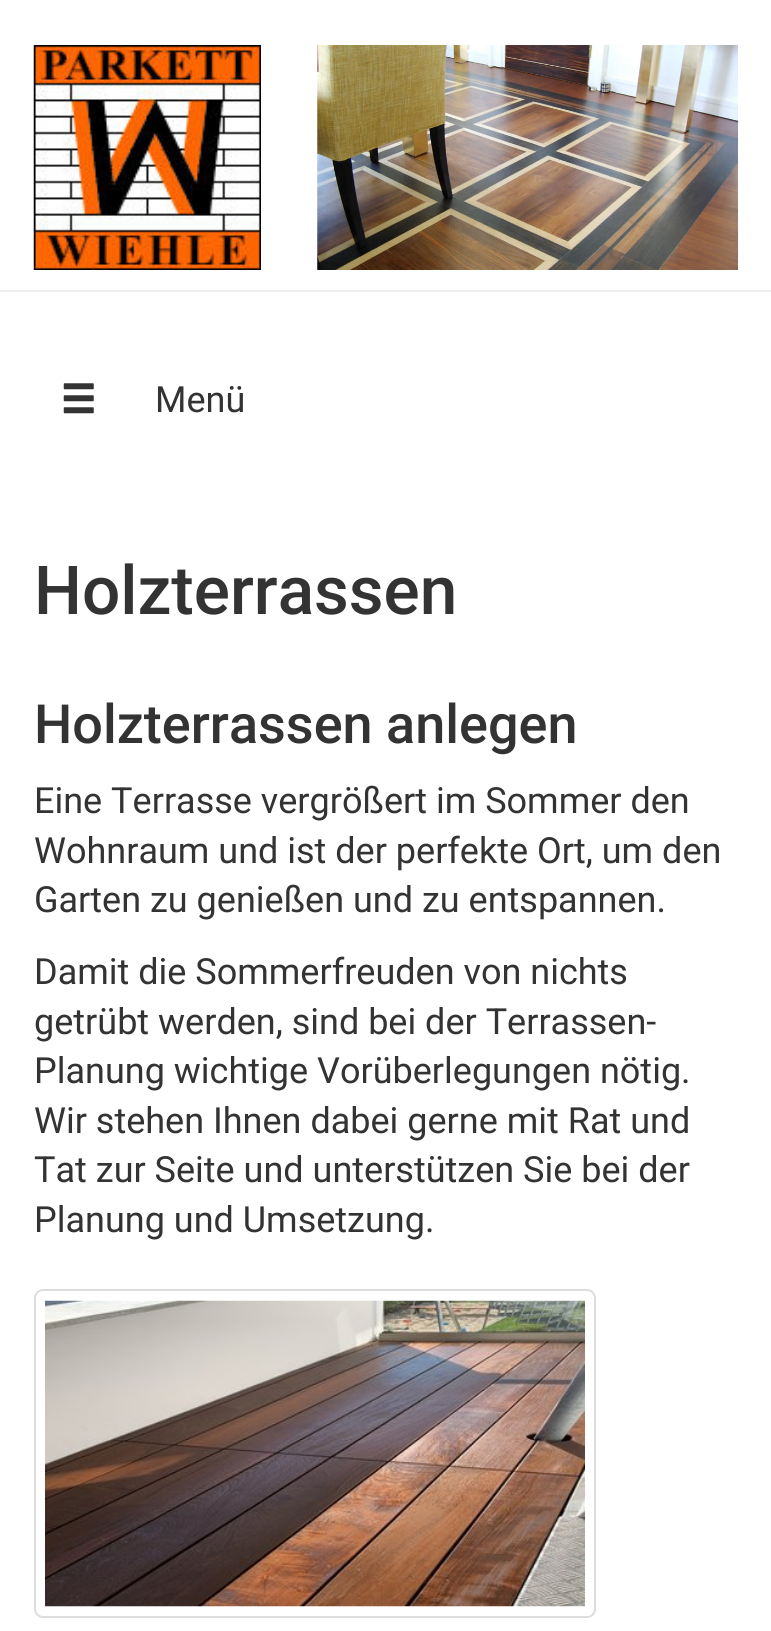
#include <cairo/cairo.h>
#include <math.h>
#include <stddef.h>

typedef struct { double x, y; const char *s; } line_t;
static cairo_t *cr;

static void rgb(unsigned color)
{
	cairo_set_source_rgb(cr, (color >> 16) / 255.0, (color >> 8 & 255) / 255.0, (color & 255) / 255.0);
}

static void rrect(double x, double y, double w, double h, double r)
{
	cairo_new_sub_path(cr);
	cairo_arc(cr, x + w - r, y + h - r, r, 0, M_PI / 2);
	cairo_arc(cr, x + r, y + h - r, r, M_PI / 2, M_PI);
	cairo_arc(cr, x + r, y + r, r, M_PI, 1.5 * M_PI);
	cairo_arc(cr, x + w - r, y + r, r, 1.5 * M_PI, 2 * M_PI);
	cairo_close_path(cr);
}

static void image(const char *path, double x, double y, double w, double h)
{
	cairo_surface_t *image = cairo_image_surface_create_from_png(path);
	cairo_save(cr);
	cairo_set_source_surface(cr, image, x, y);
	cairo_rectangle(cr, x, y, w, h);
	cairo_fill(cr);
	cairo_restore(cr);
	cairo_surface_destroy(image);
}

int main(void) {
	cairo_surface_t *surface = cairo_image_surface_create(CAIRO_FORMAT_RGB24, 771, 1631);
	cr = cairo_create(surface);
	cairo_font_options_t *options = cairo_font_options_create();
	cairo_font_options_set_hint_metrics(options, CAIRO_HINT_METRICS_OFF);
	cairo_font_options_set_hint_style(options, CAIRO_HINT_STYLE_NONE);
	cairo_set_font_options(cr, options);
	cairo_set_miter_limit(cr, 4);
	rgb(0xffffff);
	cairo_paint(cr);
	rgb(0xeeeeee);
	cairo_rectangle(cr, 0, 290, 771, 2);
	cairo_fill(cr);
	image("img/1.png", 33, 45, 228, 225);
	image("img/2.png", 317, 45, 421, 225);
	image("img/3.png", 63, 383, 31, 31);
	rrect(35, 1290, 560, 327, 8);
	rgb(0xdddddd);
	cairo_stroke(cr);
	image("img/4.png", 45, 1300, 540, 307);
	cairo_select_font_face(cr, "Roboto", CAIRO_FONT_SLANT_NORMAL, CAIRO_FONT_WEIGHT_NORMAL);
	cairo_set_font_size(cr, 36);
	rgb(0x333333);
	cairo_move_to(cr, 155, 412);
	cairo_show_text(cr, "Menü");
	cairo_select_font_face(cr, "Roboto Medium", CAIRO_FONT_SLANT_NORMAL, CAIRO_FONT_WEIGHT_NORMAL);
	cairo_set_font_size(cr, 67.5);
	cairo_move_to(cr, 34, 614);
	cairo_show_text(cr, "Holzterrassen");
	cairo_set_font_size(cr, 54);
	cairo_move_to(cr, 34, 743);
	cairo_show_text(cr, "Holzterrassen anlegen");
	cairo_select_font_face(cr, "Roboto", CAIRO_FONT_SLANT_NORMAL, CAIRO_FONT_WEIGHT_NORMAL);
	cairo_set_font_size(cr, 36);
	{
		static const line_t items[] = {
			{34, 813, "Eine Terrasse vergrößert im Sommer den"},
			{34, 863, "Wohnraum und ist der perfekte Ort, um den"},
			{34, 912, "Garten zu genießen und zu entspannen."},
			{34, 984, "Damit die Sommerfreuden von nichts"},
			{34, 1034, "getrübt werden, sind bei der Terrassen-"},
			{34, 1083, "Planung wichtige Vorüberlegungen nötig."},
			{34, 1133, "Wir stehen Ihnen dabei gerne mit Rat und"},
			{34, 1182, "Tat zur Seite und unterstützen Sie bei der"},
			{34, 1232, "Planung und Umsetzung."},
		};
		for (size_t i = 0; i < sizeof items / sizeof *items; i++) {
			cairo_move_to(cr, items[i].x, items[i].y);
			cairo_show_text(cr, items[i].s);
		}
	}
	cairo_surface_write_to_png(surface, "page.png");
	cairo_font_options_destroy(options);
	cairo_destroy(cr);
	cairo_surface_destroy(surface);
	return 0;
}
